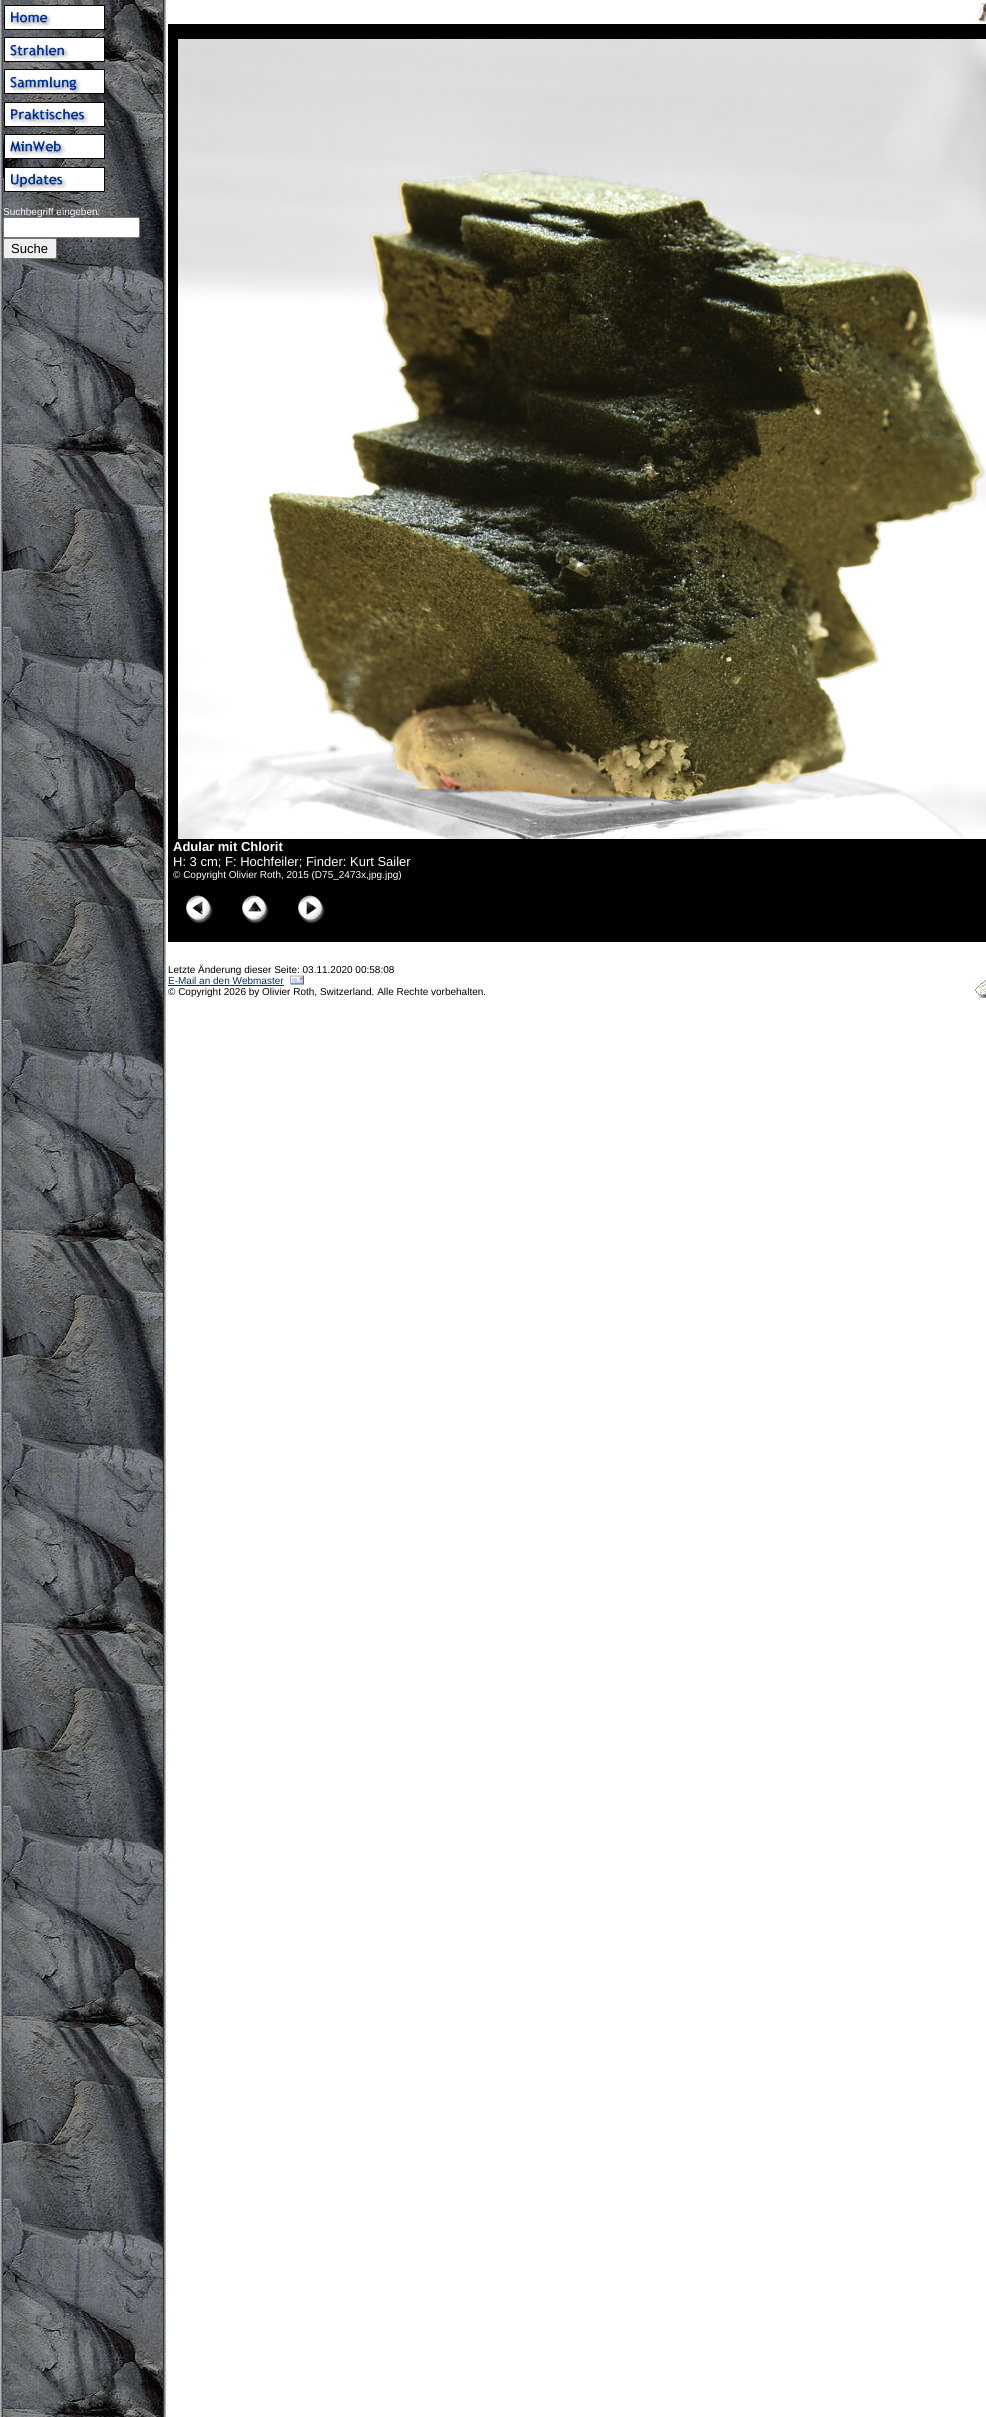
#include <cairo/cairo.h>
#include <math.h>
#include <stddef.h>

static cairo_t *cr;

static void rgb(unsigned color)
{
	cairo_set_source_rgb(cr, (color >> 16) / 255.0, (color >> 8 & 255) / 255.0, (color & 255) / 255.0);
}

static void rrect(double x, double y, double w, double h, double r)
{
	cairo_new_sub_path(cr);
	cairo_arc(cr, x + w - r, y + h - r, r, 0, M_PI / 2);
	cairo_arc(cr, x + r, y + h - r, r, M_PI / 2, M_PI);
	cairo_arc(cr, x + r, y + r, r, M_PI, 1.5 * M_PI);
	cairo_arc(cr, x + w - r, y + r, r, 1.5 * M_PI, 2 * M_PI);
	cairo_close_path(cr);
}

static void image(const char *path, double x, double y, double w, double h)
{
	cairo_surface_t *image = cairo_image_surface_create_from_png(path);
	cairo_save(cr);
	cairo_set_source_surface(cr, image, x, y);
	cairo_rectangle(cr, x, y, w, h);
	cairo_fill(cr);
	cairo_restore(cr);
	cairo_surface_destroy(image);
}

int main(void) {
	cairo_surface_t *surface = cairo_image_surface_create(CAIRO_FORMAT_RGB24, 986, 2417);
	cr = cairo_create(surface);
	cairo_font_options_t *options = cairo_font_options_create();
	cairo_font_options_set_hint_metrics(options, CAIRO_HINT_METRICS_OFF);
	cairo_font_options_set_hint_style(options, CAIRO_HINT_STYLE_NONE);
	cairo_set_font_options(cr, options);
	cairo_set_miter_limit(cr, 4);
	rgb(0xffffff);
	cairo_paint(cr);
	image("img/1.png", 0, 0, 168, 2417);
	image("img/2.png", 4, 5, 101, 187);
	rgb(0xffffff);
	rrect(3.5, 217.5, 136, 20, 1.5);
	cairo_fill_preserve(cr);
	rgb(0x767676);
	cairo_set_line_width(cr, 1);
	cairo_stroke(cr);
	rgb(0xefefef);
	rrect(3.5, 238.5, 53, 20, 1.5);
	cairo_fill_preserve(cr);
	rgb(0x767676);
	cairo_stroke(cr);
	image("img/3.png", 978, 2, 8, 20);
	rgb(0x000000);
	cairo_rectangle(cr, 168, 24, 818, 918);
	cairo_fill(cr);
	image("img/4.png", 178, 39, 808, 800);
	image("img/5.png", 185, 895, 28, 29);
	image("img/6.png", 241, 895, 28, 29);
	image("img/7.png", 297, 895, 28, 29);
	rgb(0x003366);
	cairo_rectangle(cr, 168, 985, 116, 1);
	cairo_fill(cr);
	image("img/9.png", 975, 980, 11, 18);
	cairo_select_font_face(cr, "Liberation Sans", CAIRO_FONT_SLANT_NORMAL, CAIRO_FONT_WEIGHT_NORMAL);
	cairo_set_font_size(cr, 10);
	rgb(0xffffff);
	cairo_move_to(cr, 3, 215);
	cairo_show_text(cr, "Suchbegriff eingeben:");
	cairo_set_font_size(cr, 13);
	rgb(0x000000);
	cairo_move_to(cr, 11, 253);
	cairo_show_text(cr, "Suche");
	cairo_select_font_face(cr, "Liberation Sans", CAIRO_FONT_SLANT_NORMAL, CAIRO_FONT_WEIGHT_BOLD);
	rgb(0xffffff);
	cairo_move_to(cr, 173, 851);
	cairo_show_text(cr, "Adular mit Chlorit");
	cairo_select_font_face(cr, "Liberation Sans", CAIRO_FONT_SLANT_NORMAL, CAIRO_FONT_WEIGHT_NORMAL);
	cairo_move_to(cr, 173, 866);
	cairo_show_text(cr, "H: 3 cm; F: Hochfeiler; Finder: Kurt Sailer");
	cairo_set_font_size(cr, 10);
	cairo_move_to(cr, 173, 878);
	cairo_show_text(cr, "© Copyright Olivier Roth, 2015 (D75_2473x,jpg.jpg)");
	rgb(0x000000);
	cairo_move_to(cr, 168, 973);
	cairo_show_text(cr, "Letzte Änderung dieser Seite: 03.11.2020 00:58:08");
	rgb(0x003366);
	cairo_move_to(cr, 168, 984);
	cairo_show_text(cr, "E-Mail an den Webmaster");
	image("img/8.png", 290, 975, 14, 10);
	rgb(0x000000);
	cairo_move_to(cr, 168, 995);
	cairo_show_text(cr, "© Copyright 2026 by Olivier Roth, Switzerland. Alle Rechte vorbehalten.");
	cairo_surface_write_to_png(surface, "page.png");
	cairo_font_options_destroy(options);
	cairo_destroy(cr);
	cairo_surface_destroy(surface);
	return 0;
}
